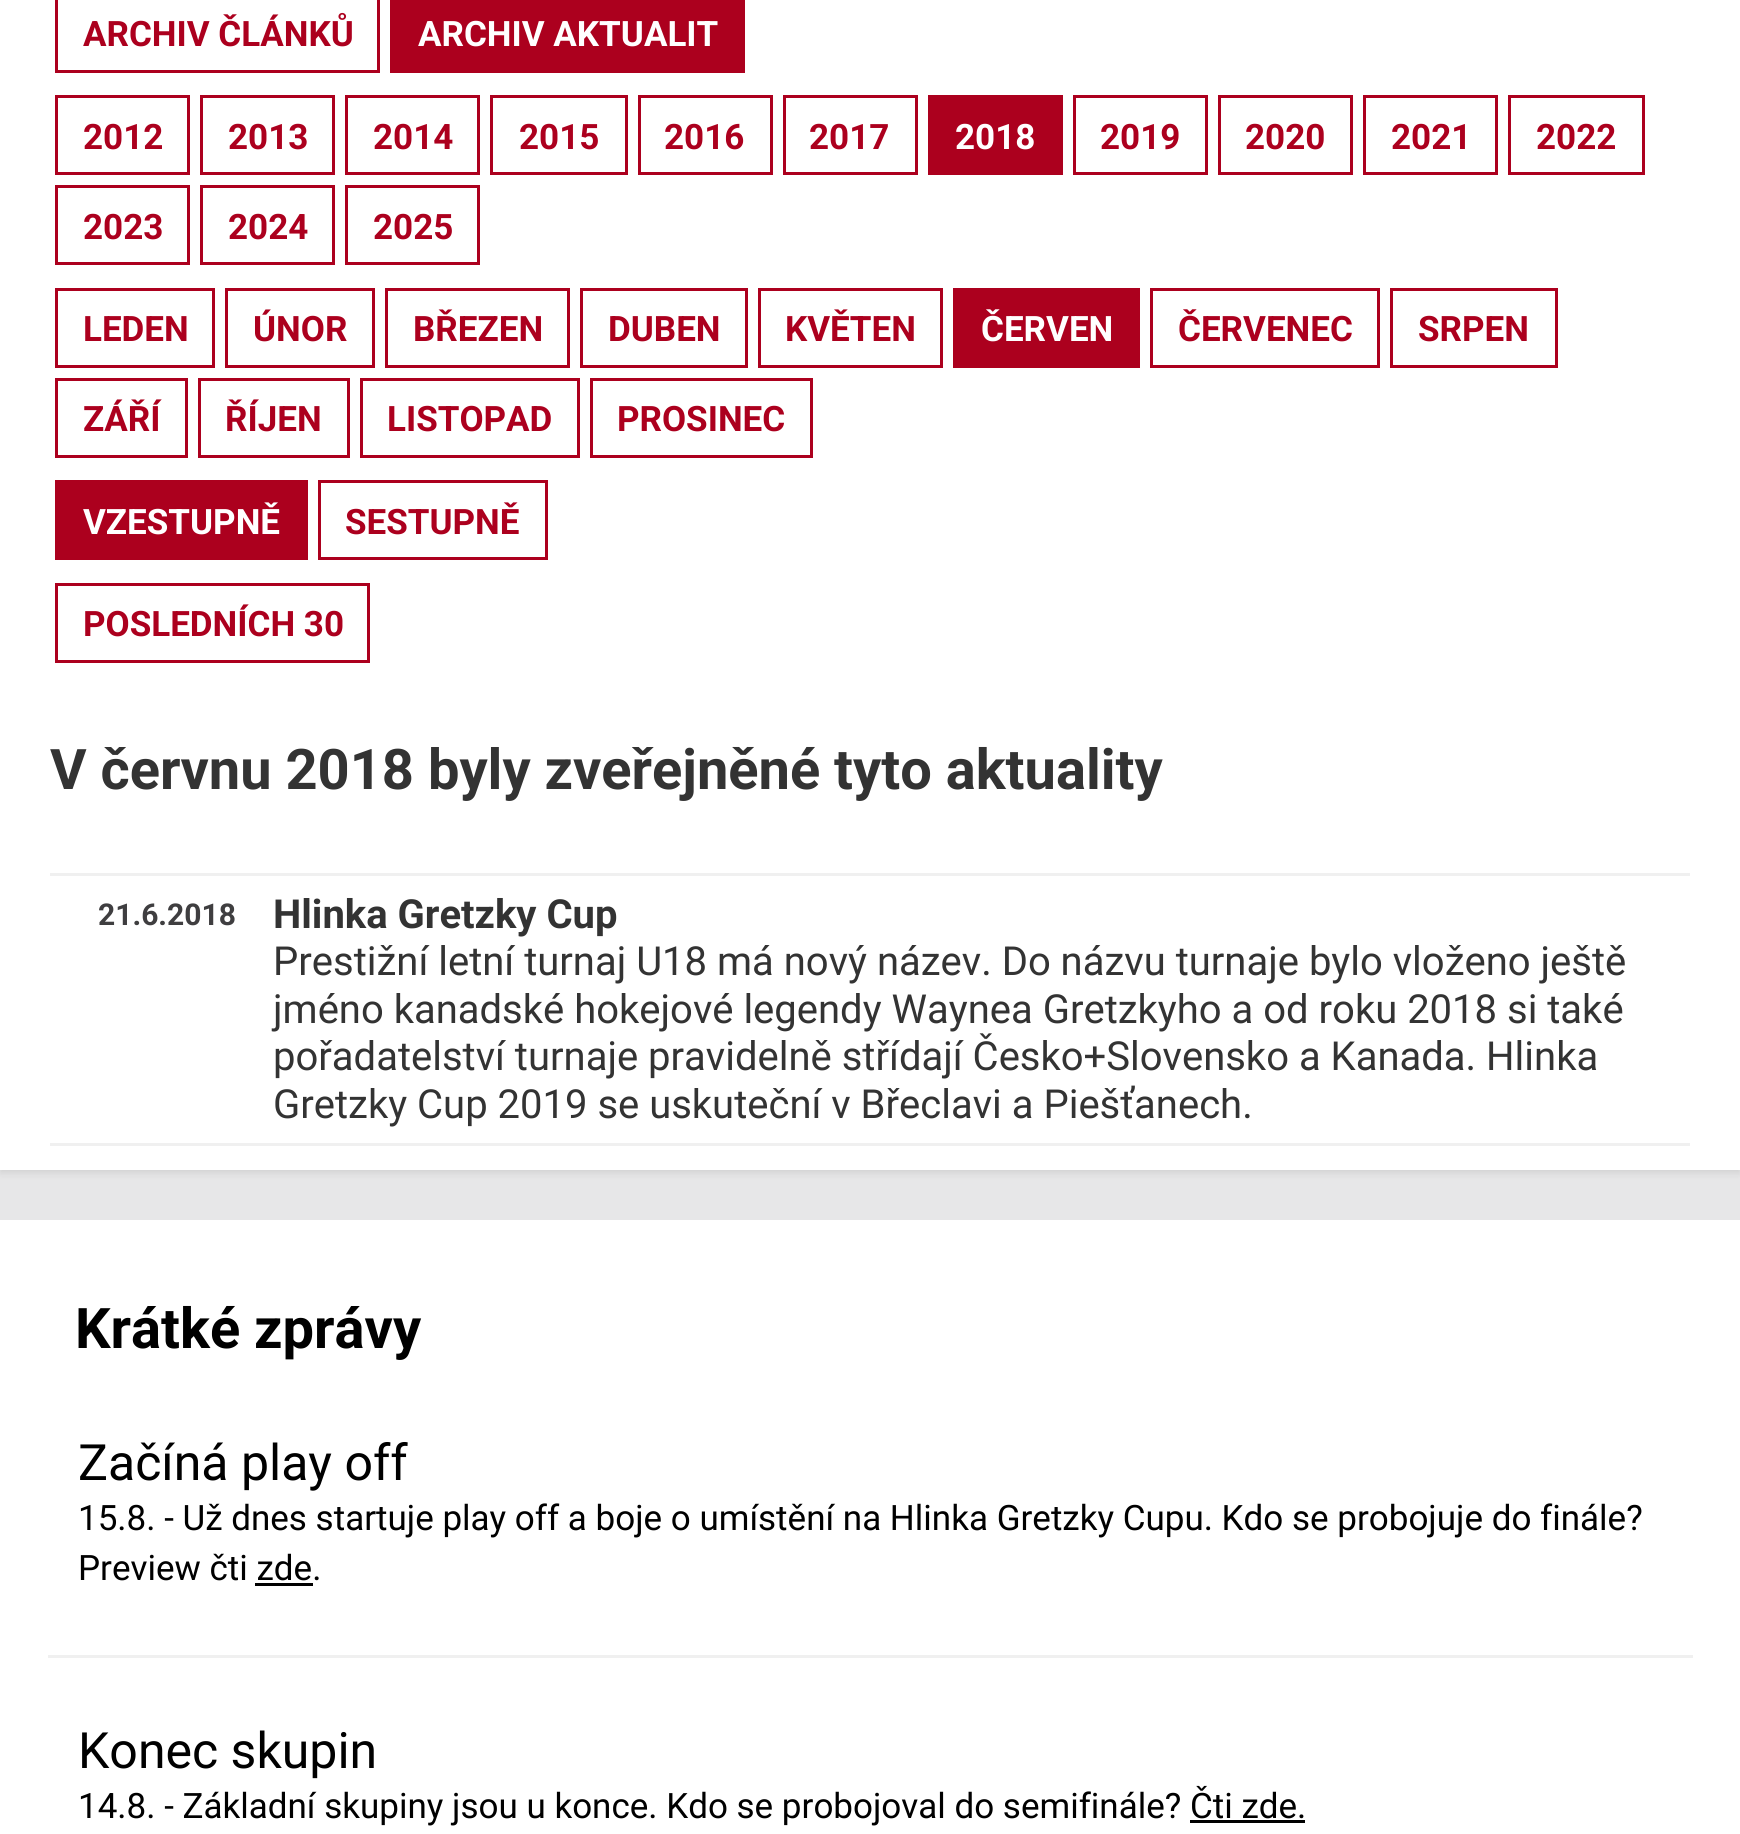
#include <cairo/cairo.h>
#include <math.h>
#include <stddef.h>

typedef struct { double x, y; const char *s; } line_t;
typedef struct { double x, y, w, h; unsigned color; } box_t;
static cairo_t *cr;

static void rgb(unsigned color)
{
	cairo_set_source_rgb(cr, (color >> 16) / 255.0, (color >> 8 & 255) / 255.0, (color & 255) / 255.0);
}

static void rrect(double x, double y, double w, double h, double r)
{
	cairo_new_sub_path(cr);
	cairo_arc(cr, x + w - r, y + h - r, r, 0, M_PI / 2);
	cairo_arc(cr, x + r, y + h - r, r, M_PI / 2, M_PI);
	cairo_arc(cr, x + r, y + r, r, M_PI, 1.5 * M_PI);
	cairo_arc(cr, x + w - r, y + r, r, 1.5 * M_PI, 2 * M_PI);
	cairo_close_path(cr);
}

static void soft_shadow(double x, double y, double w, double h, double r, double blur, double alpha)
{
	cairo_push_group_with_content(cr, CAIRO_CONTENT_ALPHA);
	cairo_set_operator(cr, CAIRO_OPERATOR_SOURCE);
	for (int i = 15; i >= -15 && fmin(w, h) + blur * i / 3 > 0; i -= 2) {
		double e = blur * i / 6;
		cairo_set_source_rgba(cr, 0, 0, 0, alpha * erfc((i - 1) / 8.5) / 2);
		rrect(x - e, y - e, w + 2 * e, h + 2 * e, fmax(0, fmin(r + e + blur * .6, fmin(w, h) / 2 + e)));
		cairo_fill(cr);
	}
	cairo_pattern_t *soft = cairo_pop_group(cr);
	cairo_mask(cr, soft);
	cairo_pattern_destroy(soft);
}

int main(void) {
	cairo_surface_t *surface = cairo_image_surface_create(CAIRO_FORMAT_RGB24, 1740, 1834);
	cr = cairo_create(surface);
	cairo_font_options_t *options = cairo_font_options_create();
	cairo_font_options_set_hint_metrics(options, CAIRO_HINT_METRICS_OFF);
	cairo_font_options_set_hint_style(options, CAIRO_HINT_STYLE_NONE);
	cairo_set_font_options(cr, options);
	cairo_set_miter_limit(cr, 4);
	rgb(0xe7e7e8);
	cairo_paint(cr);
	rgb(0x010101);
	soft_shadow(0, -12, 1740, 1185, 0, 4, 0.1);
	rgb(0xffffff);
	cairo_rectangle(cr, 0, 0, 1740, 1170);
	cairo_fill(cr);
	cairo_rectangle(cr, 56.5, -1.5, 322, 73);
	rgb(0xac001e);
	cairo_set_line_width(cr, 3);
	cairo_stroke(cr);
	cairo_rectangle(cr, 390, 0, 355, 73);
	cairo_fill(cr);
	cairo_rectangle(cr, 56.5, 96.5, 132, 77);
	cairo_stroke(cr);
	cairo_rectangle(cr, 201.5, 96.5, 132, 77);
	cairo_stroke(cr);
	cairo_rectangle(cr, 346.5, 96.5, 132, 77);
	cairo_stroke(cr);
	cairo_rectangle(cr, 491.5, 96.5, 135, 77);
	cairo_stroke(cr);
	cairo_rectangle(cr, 639.5, 96.5, 132, 77);
	cairo_stroke(cr);
	cairo_rectangle(cr, 784.5, 96.5, 132, 77);
	cairo_stroke(cr);
	cairo_rectangle(cr, 928, 95, 135, 80);
	cairo_fill(cr);
	cairo_rectangle(cr, 1074.5, 96.5, 132, 77);
	cairo_stroke(cr);
	cairo_rectangle(cr, 1219.5, 96.5, 132, 77);
	cairo_stroke(cr);
	cairo_rectangle(cr, 1364.5, 96.5, 132, 77);
	cairo_stroke(cr);
	cairo_rectangle(cr, 1509.5, 96.5, 134, 77);
	cairo_stroke(cr);
	cairo_rectangle(cr, 56.5, 186.5, 132, 77);
	cairo_stroke(cr);
	cairo_rectangle(cr, 201.5, 186.5, 132, 77);
	cairo_stroke(cr);
	cairo_rectangle(cr, 346.5, 186.5, 132, 77);
	cairo_stroke(cr);
	cairo_rectangle(cr, 56.5, 289.5, 157, 77);
	cairo_stroke(cr);
	cairo_rectangle(cr, 226.5, 289.5, 147, 77);
	cairo_stroke(cr);
	cairo_rectangle(cr, 386.5, 289.5, 182, 77);
	cairo_stroke(cr);
	cairo_rectangle(cr, 581.5, 289.5, 165, 77);
	cairo_stroke(cr);
	cairo_rectangle(cr, 759.5, 289.5, 182, 77);
	cairo_stroke(cr);
	cairo_rectangle(cr, 953, 288, 187, 80);
	cairo_fill(cr);
	cairo_rectangle(cr, 1151.5, 289.5, 227, 77);
	cairo_stroke(cr);
	cairo_rectangle(cr, 1391.5, 289.5, 165, 77);
	cairo_stroke(cr);
	cairo_rectangle(cr, 56.5, 379.5, 130, 77);
	cairo_stroke(cr);
	cairo_rectangle(cr, 199.5, 379.5, 149, 77);
	cairo_stroke(cr);
	cairo_rectangle(cr, 361.5, 379.5, 217, 77);
	cairo_stroke(cr);
	cairo_rectangle(cr, 591.5, 379.5, 220, 77);
	cairo_stroke(cr);
	cairo_rectangle(cr, 55, 480, 253, 80);
	cairo_fill(cr);
	cairo_rectangle(cr, 319.5, 481.5, 227, 77);
	cairo_stroke(cr);
	cairo_rectangle(cr, 56.5, 584.5, 312, 77);
	cairo_stroke(cr);
	{
		static const box_t items[] = {
			{50, 873, 1640, 3, 0xf0f0f0},
			{50, 1143, 1640, 3, 0xf0f0f0},
			{0, 1220, 1740, 614, 0xffffff},
			{48, 1655, 1645, 3, 0xf0f0f0},
			{255, 1583, 58, 3, 0x000000},
			{1190, 1820, 115, 3, 0x000000},
		};
		for (size_t i = 0; i < sizeof items / sizeof *items; i++) {
			rgb(items[i].color);
			cairo_rectangle(cr, items[i].x, items[i].y, items[i].w, items[i].h);
			cairo_fill(cr);
		}
	}
	cairo_select_font_face(cr, "Roboto", CAIRO_FONT_SLANT_NORMAL, CAIRO_FONT_WEIGHT_BOLD);
	cairo_set_font_size(cr, 35);
	rgb(0xac001e);
	cairo_move_to(cr, 83, 46);
	cairo_show_text(cr, "ARCHIV ČLÁNKŮ");
	rgb(0xffffff);
	cairo_move_to(cr, 418, 46);
	cairo_show_text(cr, "ARCHIV AKTUALIT");
	rgb(0xac001e);
	{
		static const line_t items[] = {
			{83, 149, "2012"},
			{228, 149, "2013"},
			{373, 149, "2014"},
			{519, 149, "2015"},
			{664, 149, "2016"},
			{809, 149, "2017"},
		};
		for (size_t i = 0; i < sizeof items / sizeof *items; i++) {
			cairo_move_to(cr, items[i].x, items[i].y);
			cairo_show_text(cr, items[i].s);
		}
	}
	rgb(0xffffff);
	cairo_move_to(cr, 955, 149);
	cairo_show_text(cr, "2018");
	rgb(0xac001e);
	{
		static const line_t items[] = {
			{1100, 149, "2019"},
			{1245, 149, "2020"},
			{1391, 149, "2021"},
			{1536, 149, "2022"},
			{83, 239, "2023"},
			{228, 239, "2024"},
			{373, 239, "2025"},
			{83, 341, "LEDEN"},
			{253, 341, "ÚNOR"},
			{413, 341, "BŘEZEN"},
			{608, 341, "DUBEN"},
			{785, 341, "KVĚTEN"},
		};
		for (size_t i = 0; i < sizeof items / sizeof *items; i++) {
			cairo_move_to(cr, items[i].x, items[i].y);
			cairo_show_text(cr, items[i].s);
		}
	}
	rgb(0xffffff);
	cairo_move_to(cr, 981, 341);
	cairo_show_text(cr, "ČERVEN");
	rgb(0xac001e);
	{
		static const line_t items[] = {
			{1178, 341, "ČERVENEC"},
			{1418, 341, "SRPEN"},
			{83, 431, "ZÁŘÍ"},
			{225, 431, "ŘÍJEN"},
			{387, 431, "LISTOPAD"},
			{617, 431, "PROSINEC"},
		};
		for (size_t i = 0; i < sizeof items / sizeof *items; i++) {
			cairo_move_to(cr, items[i].x, items[i].y);
			cairo_show_text(cr, items[i].s);
		}
	}
	rgb(0xffffff);
	cairo_move_to(cr, 83, 534);
	cairo_show_text(cr, "VZESTUPNĚ");
	rgb(0xac001e);
	cairo_move_to(cr, 345, 534);
	cairo_show_text(cr, "SESTUPNĚ");
	cairo_move_to(cr, 83, 636);
	cairo_show_text(cr, "POSLEDNÍCH 30");
	cairo_set_font_size(cr, 56);
	rgb(0x333333);
	cairo_move_to(cr, 50, 789);
	cairo_show_text(cr, "V červnu 2018 byly zveřejněné tyto aktuality");
	cairo_set_font_size(cr, 30);
	rgb(0x3f3e40);
	cairo_move_to(cr, 98, 925);
	cairo_show_text(cr, "21.6.2018");
	cairo_set_font_size(cr, 40);
	rgb(0x333333);
	cairo_move_to(cr, 273, 928);
	cairo_show_text(cr, "Hlinka Gretzky Cup");
	cairo_select_font_face(cr, "Roboto", CAIRO_FONT_SLANT_NORMAL, CAIRO_FONT_WEIGHT_NORMAL);
	{
		static const line_t items[] = {
			{273, 975, "Prestižní letní turnaj U18 má nový název. Do názvu turnaje bylo vloženo ještě"},
			{273, 1023, "jméno kanadské hokejové legendy Waynea Gretzkyho a od roku 2018 si také"},
			{273, 1070, "pořadatelství turnaje pravidelně střídají Česko+Slovensko a Kanada. Hlinka"},
			{273, 1118, "Gretzky Cup 2019 se uskuteční v Břeclavi a Piešťanech."},
		};
		for (size_t i = 0; i < sizeof items / sizeof *items; i++) {
			cairo_move_to(cr, items[i].x, items[i].y);
			cairo_show_text(cr, items[i].s);
		}
	}
	cairo_select_font_face(cr, "Roboto", CAIRO_FONT_SLANT_NORMAL, CAIRO_FONT_WEIGHT_BOLD);
	cairo_set_font_size(cr, 56);
	rgb(0x000000);
	cairo_move_to(cr, 75, 1348);
	cairo_show_text(cr, "Krátké zprávy");
	cairo_select_font_face(cr, "Roboto", CAIRO_FONT_SLANT_NORMAL, CAIRO_FONT_WEIGHT_NORMAL);
	cairo_set_font_size(cr, 50);
	cairo_move_to(cr, 78, 1480);
	cairo_show_text(cr, "Začíná play off");
	cairo_set_font_size(cr, 35);
	cairo_move_to(cr, 78, 1530);
	cairo_show_text(cr, "15.8. - Už dnes startuje play off a boje o umístění na Hlinka Gretzky Cupu. Kdo se probojuje do finále?");
	cairo_move_to(cr, 78, 1580);
	cairo_show_text(cr, "Preview čti zde.");
	cairo_set_font_size(cr, 50);
	cairo_move_to(cr, 78, 1768);
	cairo_show_text(cr, "Konec skupin");
	cairo_set_font_size(cr, 35);
	cairo_move_to(cr, 78, 1818);
	cairo_show_text(cr, "14.8. - Základní skupiny jsou u konce. Kdo se probojoval do semifinále? Čti zde.");
	cairo_surface_write_to_png(surface, "page.png");
	cairo_font_options_destroy(options);
	cairo_destroy(cr);
	cairo_surface_destroy(surface);
	return 0;
}
